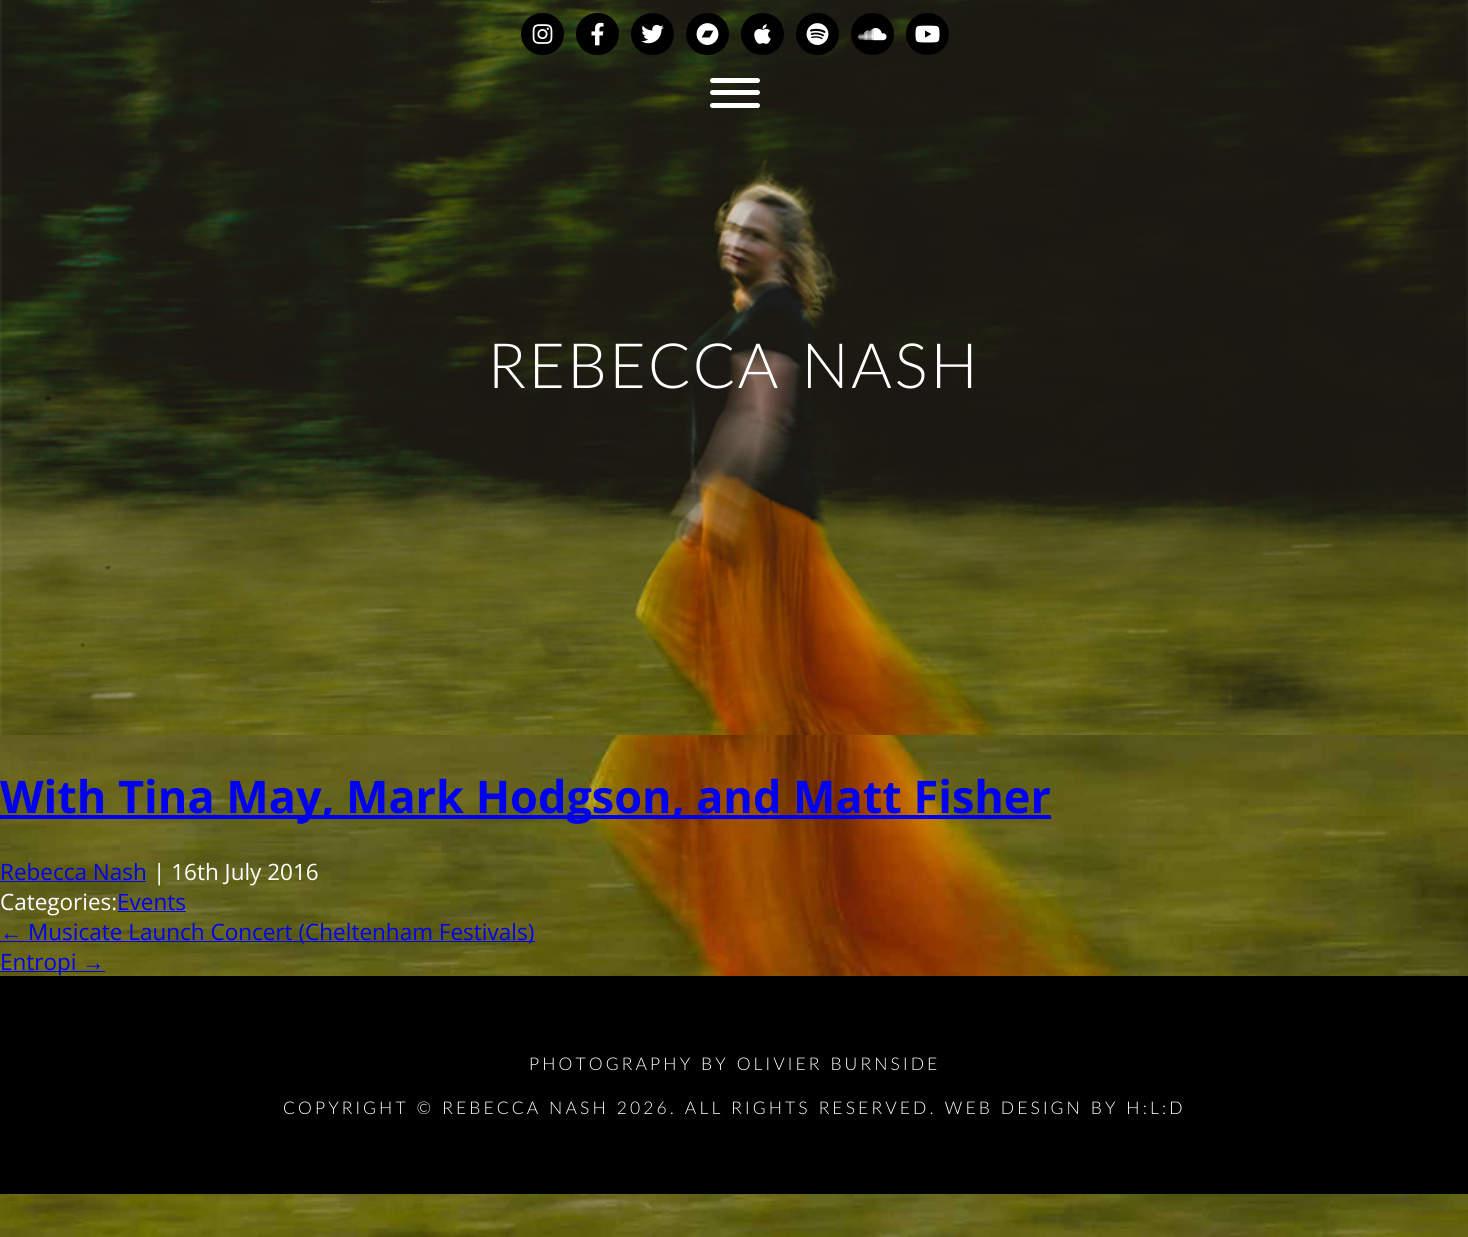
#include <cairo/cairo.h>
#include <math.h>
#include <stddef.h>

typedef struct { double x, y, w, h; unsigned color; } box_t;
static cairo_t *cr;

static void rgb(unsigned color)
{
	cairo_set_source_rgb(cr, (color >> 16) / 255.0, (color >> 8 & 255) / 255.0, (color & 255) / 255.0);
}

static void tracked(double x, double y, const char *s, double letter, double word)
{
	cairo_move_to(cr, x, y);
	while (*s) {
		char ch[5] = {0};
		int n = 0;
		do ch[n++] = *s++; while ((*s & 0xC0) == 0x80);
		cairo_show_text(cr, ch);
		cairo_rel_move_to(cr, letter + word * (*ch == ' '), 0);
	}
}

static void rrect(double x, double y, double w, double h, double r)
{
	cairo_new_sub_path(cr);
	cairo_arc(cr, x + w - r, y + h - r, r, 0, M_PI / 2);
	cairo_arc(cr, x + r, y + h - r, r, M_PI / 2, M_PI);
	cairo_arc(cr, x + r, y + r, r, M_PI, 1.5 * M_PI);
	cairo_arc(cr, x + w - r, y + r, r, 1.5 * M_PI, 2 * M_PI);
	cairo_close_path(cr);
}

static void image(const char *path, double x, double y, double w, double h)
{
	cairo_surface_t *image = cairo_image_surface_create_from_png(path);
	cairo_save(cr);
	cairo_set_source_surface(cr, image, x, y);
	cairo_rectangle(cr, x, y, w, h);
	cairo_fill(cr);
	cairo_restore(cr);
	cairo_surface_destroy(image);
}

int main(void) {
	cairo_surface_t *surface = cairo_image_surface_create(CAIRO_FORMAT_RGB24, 1468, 1237);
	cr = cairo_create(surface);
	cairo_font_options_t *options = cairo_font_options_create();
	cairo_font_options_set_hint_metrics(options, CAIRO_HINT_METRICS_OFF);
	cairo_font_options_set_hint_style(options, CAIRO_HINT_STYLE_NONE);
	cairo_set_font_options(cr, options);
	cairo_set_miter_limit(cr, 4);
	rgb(0xffffff);
	cairo_paint(cr);
	image("img/1.png", 0, 735, 1468, 502);
	image("img/10.png", 0, 0, 1468, 735);
	rgb(0x000000);
	rrect(521, 13, 43, 42, 21);
	cairo_fill(cr);
	image("img/2.png", 532, 24, 21, 20);
	rrect(576, 13, 43, 42, 21);
	cairo_fill(cr);
	image("img/3.png", 591, 22, 13, 24);
	rrect(631, 13, 43, 42, 21);
	cairo_fill(cr);
	image("img/4.png", 641, 24, 23, 20);
	rrect(686, 13, 43, 42, 21);
	cairo_fill(cr);
	image("img/5.png", 696, 23, 23, 22);
	rrect(741, 13, 43, 42, 21);
	cairo_fill(cr);
	image("img/6.png", 754, 24, 17, 20);
	rrect(796, 13, 43, 42, 21);
	cairo_fill(cr);
	image("img/7.png", 806, 23, 23, 22);
	rrect(851, 13, 43, 42, 21);
	cairo_fill(cr);
	image("img/8.png", 858, 28, 29, 13);
	rrect(906, 13, 43, 42, 21);
	cairo_fill(cr);
	image("img/9.png", 915, 25, 25, 18);
	rgb(0xffffff);
	rrect(710, 78, 50, 5, 2.5);
	cairo_fill(cr);
	rrect(710, 90, 50, 5, 2.5);
	cairo_fill(cr);
	rrect(710, 103, 50, 5, 2.5);
	cairo_fill(cr);
	{
		static const box_t items[] = {
			{0, 815, 1051, 4, 0x0000ee},
			{0, 881, 146, 1, 0x0000ee},
			{118, 911, 68, 1, 0x0000ee},
			{0, 941, 535, 1, 0x0000ee},
			{0, 971, 105, 1, 0x0000ee},
			{0, 976, 1468, 218, 0x000000},
		};
		for (size_t i = 0; i < sizeof items / sizeof *items; i++) {
			rgb(items[i].color);
			cairo_rectangle(cr, items[i].x, items[i].y, items[i].w, items[i].h);
			cairo_fill(cr);
		}
	}
	cairo_select_font_face(cr, "Lato Light", CAIRO_FONT_SLANT_NORMAL, CAIRO_FONT_WEIGHT_NORMAL);
	cairo_set_font_size(cr, 62.5);
	rgb(0xffffff);
	tracked(488, 388, "REBECCA NASH", 2.5, 1);
	cairo_select_font_face(cr, "Open Sans", CAIRO_FONT_SLANT_NORMAL, CAIRO_FONT_WEIGHT_BOLD);
	cairo_set_font_size(cr, 45);
	rgb(0x0000ee);
	cairo_move_to(cr, 0, 813);
	cairo_show_text(cr, "With Tina May, Mark Hodgson, and Matt Fisher");
	cairo_select_font_face(cr, "Open Sans", CAIRO_FONT_SLANT_NORMAL, CAIRO_FONT_WEIGHT_NORMAL);
	cairo_set_font_size(cr, 22.5);
	cairo_move_to(cr, 0, 880);
	cairo_show_text(cr, "Rebecca Nash");
	rgb(0xffffff);
	cairo_move_to(cr, 153, 880);
	cairo_show_text(cr, "| 16th July 2016");
	cairo_move_to(cr, 0, 910);
	cairo_show_text(cr, "Categories:");
	rgb(0x0000ee);
	cairo_move_to(cr, 117, 910);
	cairo_show_text(cr, "Events");
	cairo_select_font_face(cr, "Liberation Sans", CAIRO_FONT_SLANT_NORMAL, CAIRO_FONT_WEIGHT_NORMAL);
	cairo_move_to(cr, 0, 940);
	cairo_show_text(cr, "←");
	cairo_select_font_face(cr, "Open Sans", CAIRO_FONT_SLANT_NORMAL, CAIRO_FONT_WEIGHT_NORMAL);
	cairo_move_to(cr, 28, 940);
	cairo_show_text(cr, "Musicate Launch Concert (Cheltenham Festivals)");
	cairo_move_to(cr, 0, 970);
	cairo_show_text(cr, "Entropi");
	cairo_select_font_face(cr, "Liberation Sans", CAIRO_FONT_SLANT_NORMAL, CAIRO_FONT_WEIGHT_NORMAL);
	cairo_move_to(cr, 82, 970);
	cairo_show_text(cr, "→");
	cairo_select_font_face(cr, "Lato Light", CAIRO_FONT_SLANT_NORMAL, CAIRO_FONT_WEIGHT_NORMAL);
	cairo_set_font_size(cr, 17.5);
	rgb(0xffffff);
	tracked(529, 1070, "PHOTOGRAPHY BY OLIVIER BURNSIDE", 3.12, 0);
	tracked(283, 1114, "COPYRIGHT © REBECCA NASH 2026. ALL RIGHTS RESERVED. WEB DESIGN BY H:L:D", 3.12, 0);
	cairo_surface_write_to_png(surface, "page.png");
	cairo_font_options_destroy(options);
	cairo_destroy(cr);
	cairo_surface_destroy(surface);
	return 0;
}
